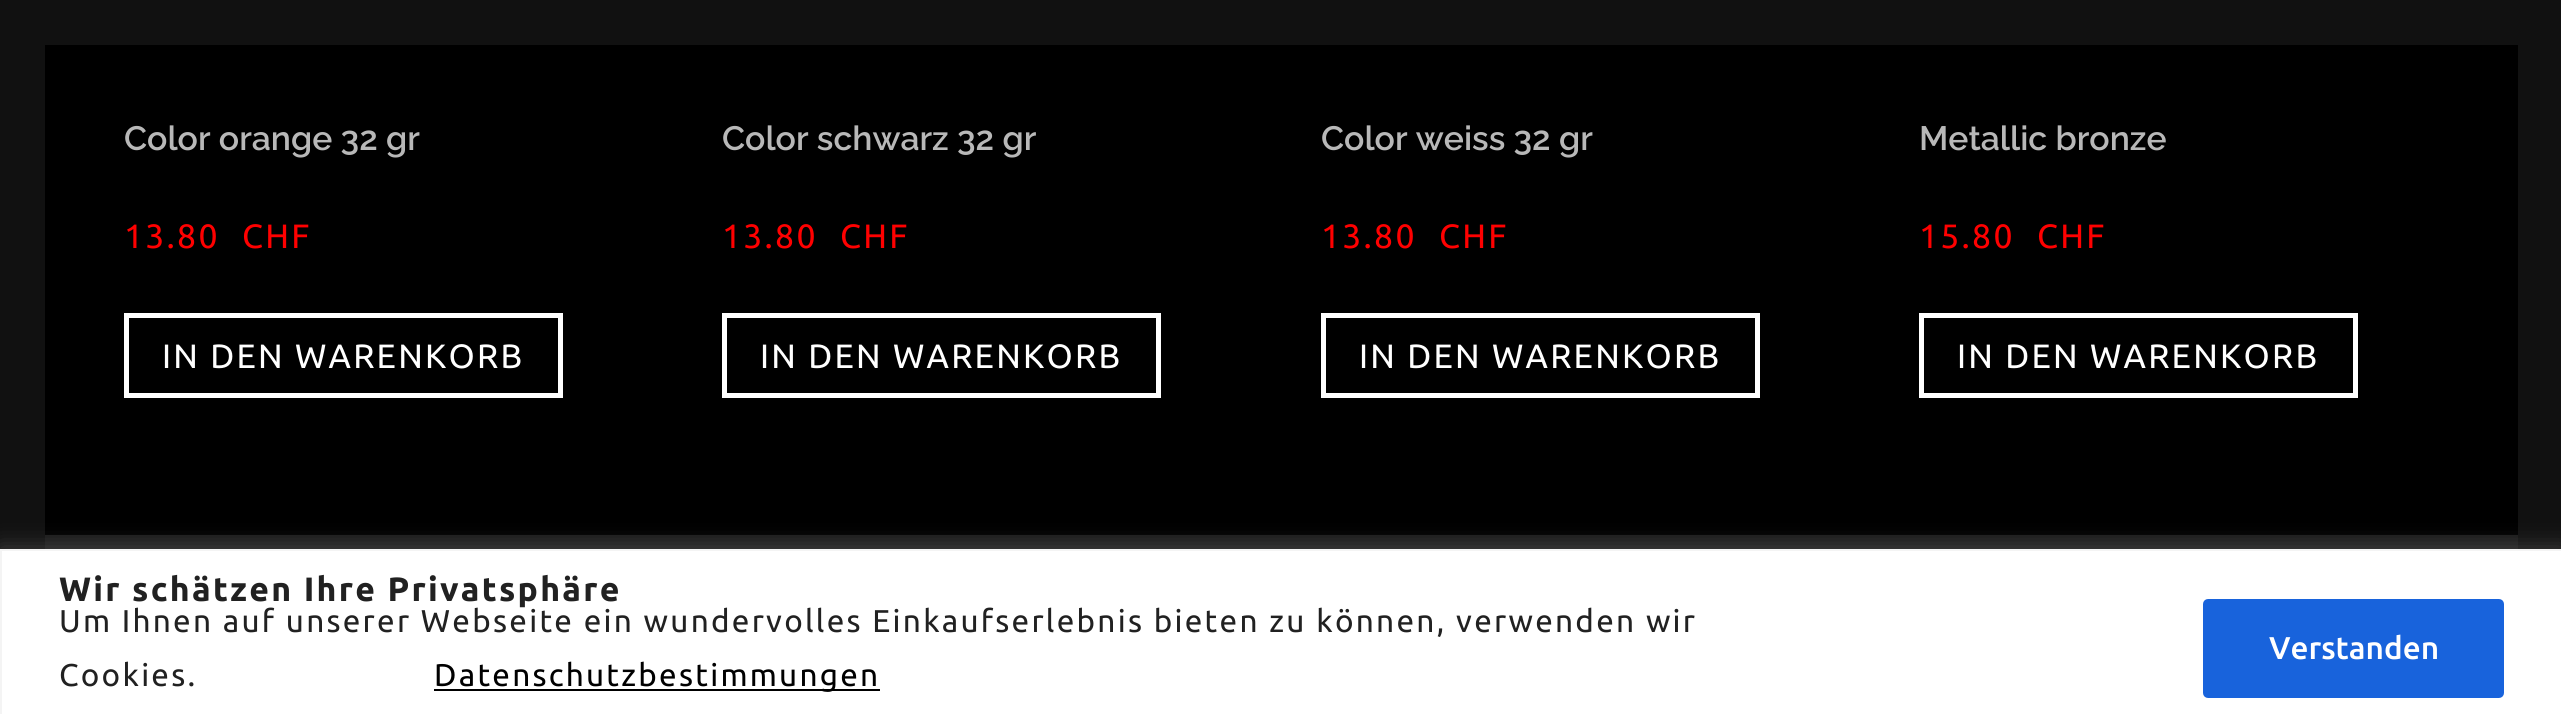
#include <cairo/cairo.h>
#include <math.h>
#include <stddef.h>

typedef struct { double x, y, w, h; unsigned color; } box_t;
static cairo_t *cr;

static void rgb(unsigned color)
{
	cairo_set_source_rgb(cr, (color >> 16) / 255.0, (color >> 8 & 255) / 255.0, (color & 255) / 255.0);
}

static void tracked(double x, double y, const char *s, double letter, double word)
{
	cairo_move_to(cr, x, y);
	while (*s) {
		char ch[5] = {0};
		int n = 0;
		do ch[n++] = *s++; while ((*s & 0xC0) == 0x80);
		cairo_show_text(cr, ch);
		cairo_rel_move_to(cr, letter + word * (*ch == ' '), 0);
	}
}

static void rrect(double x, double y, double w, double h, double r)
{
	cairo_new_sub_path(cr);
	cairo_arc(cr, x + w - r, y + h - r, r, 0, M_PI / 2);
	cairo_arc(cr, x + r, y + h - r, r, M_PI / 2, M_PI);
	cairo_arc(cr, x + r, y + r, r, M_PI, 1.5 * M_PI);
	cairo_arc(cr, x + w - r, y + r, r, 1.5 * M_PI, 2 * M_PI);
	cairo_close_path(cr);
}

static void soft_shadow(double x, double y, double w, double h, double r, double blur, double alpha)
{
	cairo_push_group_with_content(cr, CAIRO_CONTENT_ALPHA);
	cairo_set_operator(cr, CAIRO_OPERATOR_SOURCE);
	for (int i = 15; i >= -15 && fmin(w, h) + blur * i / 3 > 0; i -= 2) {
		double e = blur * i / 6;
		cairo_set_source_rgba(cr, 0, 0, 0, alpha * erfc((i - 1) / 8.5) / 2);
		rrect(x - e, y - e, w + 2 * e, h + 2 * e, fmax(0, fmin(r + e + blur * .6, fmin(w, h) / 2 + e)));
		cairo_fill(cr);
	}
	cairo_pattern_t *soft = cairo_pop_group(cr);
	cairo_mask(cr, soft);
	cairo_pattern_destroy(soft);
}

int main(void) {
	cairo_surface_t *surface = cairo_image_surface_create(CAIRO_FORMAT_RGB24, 2561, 714);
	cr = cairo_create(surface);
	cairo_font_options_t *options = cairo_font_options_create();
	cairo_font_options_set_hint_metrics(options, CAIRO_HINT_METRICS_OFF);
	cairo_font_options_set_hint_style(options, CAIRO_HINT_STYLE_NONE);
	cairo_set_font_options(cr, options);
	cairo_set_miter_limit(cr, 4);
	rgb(0x000000);
	cairo_paint(cr);
	{
		static const box_t items[] = {
			{45, 0, 2473, 45, 0x111111},
			{0, 0, 45, 549, 0x111111},
			{2518, 0, 43, 549, 0x111111},
		};
		for (size_t i = 0; i < sizeof items / sizeof *items; i++) {
			rgb(items[i].color);
			cairo_rectangle(cr, items[i].x, items[i].y, items[i].w, items[i].h);
			cairo_fill(cr);
		}
	}
	cairo_rectangle(cr, 126.5, 315.5, 434, 80);
	rgb(0xffffff);
	cairo_set_line_width(cr, 5);
	cairo_stroke(cr);
	cairo_rectangle(cr, 724.5, 315.5, 434, 80);
	cairo_stroke(cr);
	cairo_rectangle(cr, 1323.5, 315.5, 434, 80);
	cairo_stroke(cr);
	cairo_rectangle(cr, 1921.5, 315.5, 434, 80);
	cairo_stroke(cr);
	rgb(0x1a1a1a);
	cairo_rectangle(cr, 45, 535, 2473, 14);
	cairo_fill(cr);
	rgb(0xacabab);
	soft_shadow(0, 547, 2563, 166, 0, 11, 0.3);
	rgb(0xffffff);
	cairo_rectangle(cr, 1, 550, 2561, 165);
	cairo_fill_preserve(cr);
	rgb(0xf4f4f4);
	cairo_set_line_width(cr, 2);
	cairo_stroke(cr);
	rgb(0x000000);
	cairo_rectangle(cr, 434, 689, 446, 2);
	cairo_fill(cr);
	rgb(0x1863dc);
	rrect(2205.5, 601.5, 296, 94, 2.5);
	cairo_fill_preserve(cr);
	cairo_set_line_width(cr, 5);
	cairo_stroke(cr);
	cairo_select_font_face(cr, "Raleway SemiBold", CAIRO_FONT_SLANT_NORMAL, CAIRO_FONT_WEIGHT_NORMAL);
	cairo_set_font_size(cr, 33.75);
	rgb(0xb8b8b8);
	cairo_move_to(cr, 124, 150);
	cairo_show_text(cr, "Color orange 32 gr");
	cairo_select_font_face(cr, "Ubuntu", CAIRO_FONT_SLANT_NORMAL, CAIRO_FONT_WEIGHT_NORMAL);
	rgb(0xff0000);
	tracked(124, 248, "13.80", 2.25, 0);
	tracked(242, 248, "CHF", 2.25, 0);
	rgb(0xffffff);
	tracked(162, 368, "IN DEN WARENKORB", 2.25, 0);
	cairo_select_font_face(cr, "Raleway SemiBold", CAIRO_FONT_SLANT_NORMAL, CAIRO_FONT_WEIGHT_NORMAL);
	rgb(0xb8b8b8);
	cairo_move_to(cr, 722, 150);
	cairo_show_text(cr, "Color schwarz 32 gr");
	cairo_select_font_face(cr, "Ubuntu", CAIRO_FONT_SLANT_NORMAL, CAIRO_FONT_WEIGHT_NORMAL);
	rgb(0xff0000);
	tracked(722, 248, "13.80", 2.25, 0);
	tracked(840, 248, "CHF", 2.25, 0);
	rgb(0xffffff);
	tracked(760, 368, "IN DEN WARENKORB", 2.25, 0);
	cairo_select_font_face(cr, "Raleway SemiBold", CAIRO_FONT_SLANT_NORMAL, CAIRO_FONT_WEIGHT_NORMAL);
	rgb(0xb8b8b8);
	cairo_move_to(cr, 1321, 150);
	cairo_show_text(cr, "Color weiss 32 gr");
	cairo_select_font_face(cr, "Ubuntu", CAIRO_FONT_SLANT_NORMAL, CAIRO_FONT_WEIGHT_NORMAL);
	rgb(0xff0000);
	tracked(1321, 248, "13.80", 2.25, 0);
	tracked(1439, 248, "CHF", 2.25, 0);
	rgb(0xffffff);
	tracked(1359, 368, "IN DEN WARENKORB", 2.25, 0);
	cairo_select_font_face(cr, "Raleway SemiBold", CAIRO_FONT_SLANT_NORMAL, CAIRO_FONT_WEIGHT_NORMAL);
	rgb(0xb8b8b8);
	cairo_move_to(cr, 1919, 150);
	cairo_show_text(cr, "Metallic bronze");
	cairo_select_font_face(cr, "Ubuntu", CAIRO_FONT_SLANT_NORMAL, CAIRO_FONT_WEIGHT_NORMAL);
	rgb(0xff0000);
	tracked(1919, 248, "15.80", 2.25, 0);
	tracked(2037, 248, "CHF", 2.25, 0);
	rgb(0xffffff);
	tracked(1957, 368, "IN DEN WARENKORB", 2.25, 0);
	cairo_select_font_face(cr, "Ubuntu", CAIRO_FONT_SLANT_NORMAL, CAIRO_FONT_WEIGHT_BOLD);
	rgb(0x212121);
	tracked(59, 601, "Wir schätzen Ihre Privatsphäre", 2.25, 0);
	cairo_select_font_face(cr, "Ubuntu", CAIRO_FONT_SLANT_NORMAL, CAIRO_FONT_WEIGHT_NORMAL);
	cairo_set_font_size(cr, 31.5);
	tracked(59, 632, "Um Ihnen auf unserer Webseite ein wundervolles Einkaufserlebnis bieten zu können, verwenden wir", 2.25, 0);
	tracked(59, 686, "Cookies.", 2.25, 0);
	rgb(0x000000);
	tracked(434, 686, "Datenschutzbestimmungen", 2.25, 0);
	cairo_select_font_face(cr, "Ubuntu Medium", CAIRO_FONT_SLANT_NORMAL, CAIRO_FONT_WEIGHT_NORMAL);
	rgb(0xffffff);
	cairo_move_to(cr, 2269, 659);
	cairo_show_text(cr, "Verstanden");
	cairo_surface_write_to_png(surface, "page.png");
	cairo_font_options_destroy(options);
	cairo_destroy(cr);
	cairo_surface_destroy(surface);
	return 0;
}
